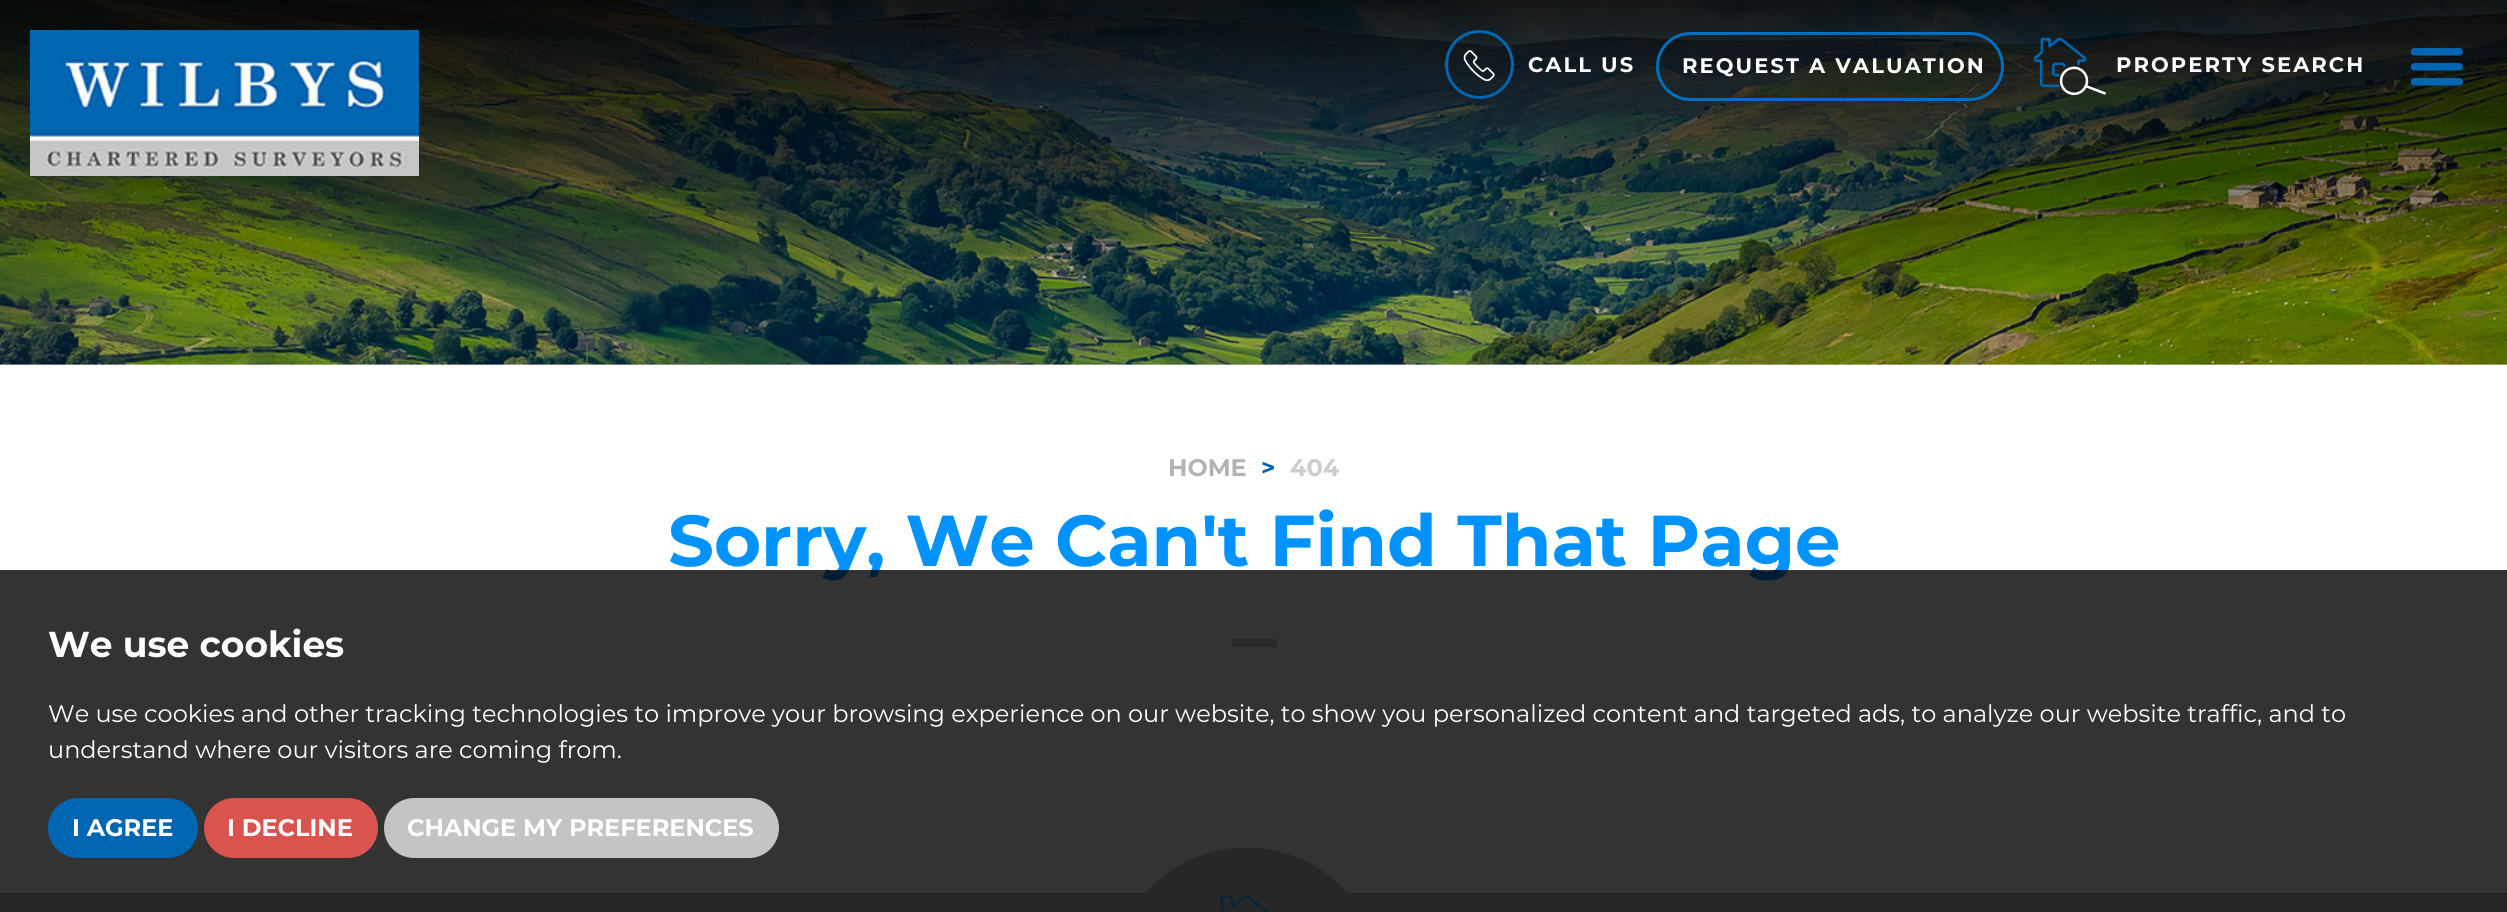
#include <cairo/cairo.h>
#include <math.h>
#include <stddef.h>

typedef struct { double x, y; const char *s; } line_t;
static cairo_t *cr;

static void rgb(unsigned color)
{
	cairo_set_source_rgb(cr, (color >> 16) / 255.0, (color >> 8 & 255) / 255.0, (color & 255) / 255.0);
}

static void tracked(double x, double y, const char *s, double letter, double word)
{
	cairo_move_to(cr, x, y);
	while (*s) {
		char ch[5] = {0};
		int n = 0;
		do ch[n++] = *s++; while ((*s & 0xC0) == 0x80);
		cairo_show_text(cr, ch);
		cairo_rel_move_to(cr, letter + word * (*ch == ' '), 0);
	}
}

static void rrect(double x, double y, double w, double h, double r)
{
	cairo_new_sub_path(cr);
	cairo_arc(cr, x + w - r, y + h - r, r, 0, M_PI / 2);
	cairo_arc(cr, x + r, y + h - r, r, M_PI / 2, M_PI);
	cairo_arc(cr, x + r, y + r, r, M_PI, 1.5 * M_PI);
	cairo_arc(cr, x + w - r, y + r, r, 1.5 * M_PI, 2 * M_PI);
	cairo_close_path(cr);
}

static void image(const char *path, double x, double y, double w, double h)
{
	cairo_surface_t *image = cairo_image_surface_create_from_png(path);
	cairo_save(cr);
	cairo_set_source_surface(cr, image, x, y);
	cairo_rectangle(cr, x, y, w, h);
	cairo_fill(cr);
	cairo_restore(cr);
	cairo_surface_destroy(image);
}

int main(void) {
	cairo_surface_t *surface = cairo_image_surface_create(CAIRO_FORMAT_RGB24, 2507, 912);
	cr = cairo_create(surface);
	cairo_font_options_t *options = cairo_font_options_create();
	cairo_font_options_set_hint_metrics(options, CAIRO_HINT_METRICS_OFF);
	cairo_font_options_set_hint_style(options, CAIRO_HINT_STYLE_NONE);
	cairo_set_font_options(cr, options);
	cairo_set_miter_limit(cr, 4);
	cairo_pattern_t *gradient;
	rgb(0xffffff);
	cairo_paint(cr);
	image("img/1.png", 0, 0, 2507, 365);
	gradient = cairo_pattern_create_linear(1254, 365, 1254, 0);
	cairo_pattern_add_color_stop_rgba(gradient, 0.2, 0, 0, 0, 0.2);
	cairo_pattern_add_color_stop_rgba(gradient, 1, 0, 0, 0, 0.9);
	cairo_set_source(cr, gradient);
	cairo_pattern_destroy(gradient);
	cairo_rectangle(cr, 0, 0, 2507, 365);
	cairo_fill(cr);
	image("img/2.png", 30, 30, 389, 146);
	cairo_arc(cr, 1479.5, 64.5, 33, 0, 2 * M_PI);
	rgb(0x0066b1);
	cairo_set_line_width(cr, 3);
	cairo_stroke(cr);
	image("img/3.png", 1463, 50, 32, 32);
	rrect(1657.5, 33.5, 345, 66, 33);
	rgb(0x006fc0);
	cairo_stroke(cr);
	image("img/4.png", 2033, 37, 73, 59);
	image("img/5.png", 2411, 48, 52, 38);
	rgb(0xcdcdcd);
	cairo_rectangle(cr, 1232, 639, 45, 8);
	cairo_fill(cr);
	cairo_save(cr);
	cairo_rectangle(cr, 1142, 848, 225, 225);
	cairo_clip(cr);
	rgb(0xc4c4c2);
	cairo_arc(cr, 1246.5, 982.5, 135, 0, 2 * M_PI);
	cairo_fill(cr);
	cairo_restore(cr);
	rgb(0xc4c4c2);
	cairo_rectangle(cr, 0, 893, 2507, 19);
	cairo_fill(cr);
	image("img/6.png", 1220, 895, 51, 17);
	cairo_select_font_face(cr, "Montserrat", CAIRO_FONT_SLANT_NORMAL, CAIRO_FONT_WEIGHT_BOLD);
	cairo_set_font_size(cr, 21);
	rgb(0xffffff);
	{
		static const line_t items[] = {
			{1528, 72, "CALL US"},
			{1682, 73, "REQUEST A VALUATION"},
			{2116, 72, "PROPERTY SEARCH"},
		};
		for (size_t i = 0; i < sizeof items / sizeof *items; i++) {
			tracked(items[i].x, items[i].y, items[i].s, 2.1, 0);
		}
	}
	cairo_set_font_size(cr, 24);
	rgb(0xb3b3b3);
	cairo_move_to(cr, 1168, 476);
	cairo_show_text(cr, "HOME");
	rgb(0x0066b1);
	cairo_move_to(cr, 1261, 476);
	cairo_show_text(cr, ">");
	rgb(0xcdcdcd);
	cairo_move_to(cr, 1290, 476);
	cairo_show_text(cr, "404");
	cairo_set_font_size(cr, 72);
	rgb(0x0092fe);
	cairo_move_to(cr, 668, 566);
	cairo_show_text(cr, "Sorry, We Can't Find That Page");
	cairo_set_source_rgba(cr, 0, 0, 0, 0.8);
	cairo_rectangle(cr, 0, 570, 2507, 342);
	cairo_fill(cr);
	cairo_set_font_size(cr, 36);
	rgb(0xffffff);
	cairo_move_to(cr, 48, 657);
	cairo_show_text(cr, "We use cookies");
	cairo_select_font_face(cr, "Montserrat", CAIRO_FONT_SLANT_NORMAL, CAIRO_FONT_WEIGHT_NORMAL);
	cairo_set_font_size(cr, 24);
	cairo_move_to(cr, 48, 722);
	cairo_show_text(cr, "We use cookies and other tracking technologies to improve your browsing experience on our website, to show you personalized content and targeted ads, to analyze our website traffic, and to");
	cairo_move_to(cr, 48, 758);
	cairo_show_text(cr, "understand where our visitors are coming from.");
	rgb(0x0066b1);
	rrect(48, 798, 150, 60, 30);
	cairo_fill(cr);
	cairo_select_font_face(cr, "Montserrat", CAIRO_FONT_SLANT_NORMAL, CAIRO_FONT_WEIGHT_BOLD);
	rgb(0xffffff);
	cairo_move_to(cr, 72, 836);
	cairo_show_text(cr, "I AGREE");
	rgb(0xd9534f);
	rrect(204, 798, 174, 60, 30);
	cairo_fill(cr);
	rgb(0xffffff);
	cairo_move_to(cr, 227, 836);
	cairo_show_text(cr, "I DECLINE");
	rgb(0xc4c4c2);
	rrect(384, 798, 395, 60, 30);
	cairo_fill(cr);
	rgb(0xffffff);
	cairo_move_to(cr, 407, 836);
	cairo_show_text(cr, "CHANGE MY PREFERENCES");
	cairo_surface_write_to_png(surface, "page.png");
	cairo_font_options_destroy(options);
	cairo_destroy(cr);
	cairo_surface_destroy(surface);
	return 0;
}
